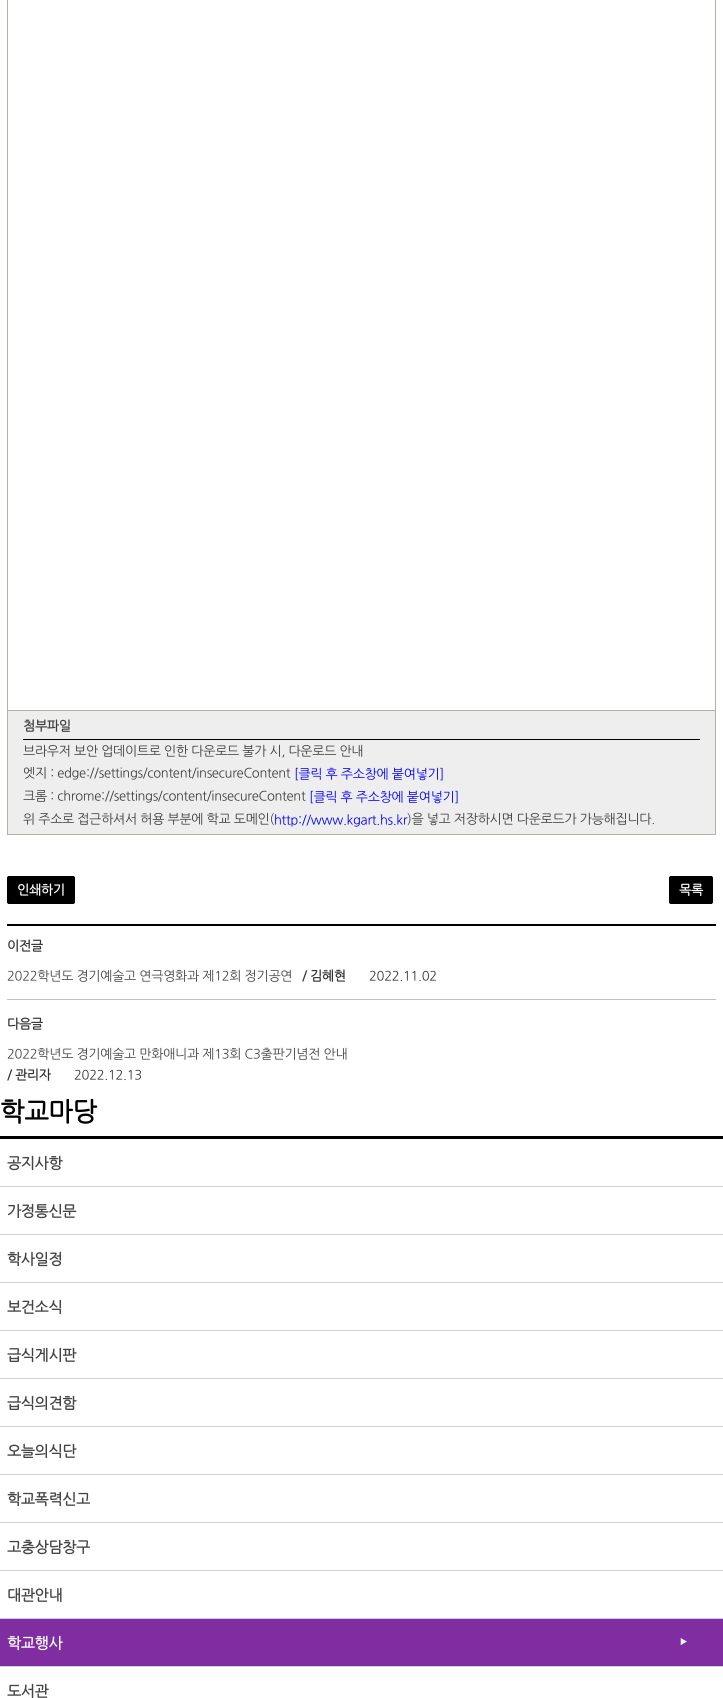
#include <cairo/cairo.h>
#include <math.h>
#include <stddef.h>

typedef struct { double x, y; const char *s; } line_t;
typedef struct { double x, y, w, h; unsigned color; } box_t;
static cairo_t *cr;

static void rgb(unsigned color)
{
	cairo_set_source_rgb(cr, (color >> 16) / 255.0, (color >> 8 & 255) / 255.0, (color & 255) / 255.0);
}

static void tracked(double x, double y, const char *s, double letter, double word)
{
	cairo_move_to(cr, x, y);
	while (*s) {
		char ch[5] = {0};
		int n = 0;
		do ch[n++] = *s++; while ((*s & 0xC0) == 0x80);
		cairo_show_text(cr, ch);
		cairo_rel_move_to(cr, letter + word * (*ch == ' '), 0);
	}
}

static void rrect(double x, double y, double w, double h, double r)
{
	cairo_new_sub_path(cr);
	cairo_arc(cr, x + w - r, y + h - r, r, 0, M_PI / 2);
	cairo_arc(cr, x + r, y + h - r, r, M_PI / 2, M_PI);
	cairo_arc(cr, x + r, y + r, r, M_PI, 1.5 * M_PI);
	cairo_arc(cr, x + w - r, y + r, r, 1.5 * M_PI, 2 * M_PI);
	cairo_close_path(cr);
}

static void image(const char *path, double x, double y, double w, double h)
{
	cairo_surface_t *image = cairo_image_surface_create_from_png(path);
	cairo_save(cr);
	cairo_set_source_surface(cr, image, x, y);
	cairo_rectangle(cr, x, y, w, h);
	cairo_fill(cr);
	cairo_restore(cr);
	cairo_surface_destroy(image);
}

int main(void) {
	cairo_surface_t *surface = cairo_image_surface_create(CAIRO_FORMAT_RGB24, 723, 1698);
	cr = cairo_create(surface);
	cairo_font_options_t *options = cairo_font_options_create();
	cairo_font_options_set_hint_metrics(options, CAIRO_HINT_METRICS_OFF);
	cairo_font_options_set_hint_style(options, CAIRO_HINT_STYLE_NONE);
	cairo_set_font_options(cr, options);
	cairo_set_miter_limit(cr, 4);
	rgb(0xffffff);
	cairo_paint(cr);
	cairo_rectangle(cr, 7.5, -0.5, 708, 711);
	rgb(0xb2b2a6);
	cairo_set_line_width(cr, 1);
	cairo_stroke(cr);
	{
		static const box_t items[] = {
			{8, 711, 707, 123, 0xeeeeee},
			{715, 711, 1, 124, 0xb2b2a6},
			{7, 834, 709, 1, 0xb2b2a6},
			{7, 711, 1, 124, 0xb2b2a6},
			{23, 739, 677, 1, 0x000000},
		};
		for (size_t i = 0; i < sizeof items / sizeof *items; i++) {
			rgb(items[i].color);
			cairo_rectangle(cr, items[i].x, items[i].y, items[i].w, items[i].h);
			cairo_fill(cr);
		}
	}
	rrect(7, 876, 68, 28, 2);
	cairo_fill(cr);
	rrect(7, 876, 68, 28, 3);
	cairo_fill(cr);
	rrect(669, 876, 44, 28, 2);
	cairo_fill(cr);
	rrect(669, 876, 44, 28, 3);
	cairo_fill(cr);
	{
		static const box_t items[] = {
			{7, 924, 709, 2, 0x000000},
			{7, 999, 709, 1, 0xc1c1c1},
			{0, 1136, 723, 3, 0x000000},
			{0, 1186, 723, 1, 0xd1d1d1},
			{0, 1234, 723, 1, 0xd1d1d1},
			{0, 1282, 723, 1, 0xd1d1d1},
			{0, 1330, 723, 1, 0xd1d1d1},
			{0, 1378, 723, 1, 0xd1d1d1},
			{0, 1426, 723, 1, 0xd1d1d1},
			{0, 1474, 723, 1, 0xd1d1d1},
			{0, 1522, 723, 1, 0xd1d1d1},
			{0, 1570, 723, 1, 0xd1d1d1},
			{0, 1619, 723, 47, 0x812da2},
		};
		for (size_t i = 0; i < sizeof items / sizeof *items; i++) {
			rgb(items[i].color);
			cairo_rectangle(cr, items[i].x, items[i].y, items[i].w, items[i].h);
			cairo_fill(cr);
		}
	}
	image("img/1.png", 680, 1638, 7, 8);
	rgb(0xd1d1d1);
	cairo_rectangle(cr, 0, 1618, 723, 1);
	cairo_fill(cr);
	cairo_rectangle(cr, 0, 1666, 723, 1);
	cairo_fill(cr);
	cairo_select_font_face(cr, "NanumGothic", CAIRO_FONT_SLANT_NORMAL, CAIRO_FONT_WEIGHT_BOLD);
	cairo_set_font_size(cr, 13);
	rgb(0x3d3d3d);
	tracked(23, 730, "첨부파일", -0.3, 0);
	cairo_select_font_face(cr, "NanumGothic", CAIRO_FONT_SLANT_NORMAL, CAIRO_FONT_WEIGHT_NORMAL);
	tracked(23, 755, "브라우저 보안 업데이트로 인한 다운로드 불가 시, 다운로드 안내", -0.3, 0);
	tracked(23, 777, "엣지 : edge://settings/content/insecureContent", -0.3, 0);
	rgb(0x0000ff);
	tracked(294, 778, "[클릭 후 주소창에 붙여넣기]", -0.3, 0);
	rgb(0x3d3d3d);
	tracked(23, 800, "크롬 : chrome://settings/content/insecureContent", -0.3, 0);
	rgb(0x0000ff);
	tracked(309, 801, "[클릭 후 주소창에 붙여넣기]", -0.3, 0);
	rgb(0x3d3d3d);
	tracked(23, 823, "위 주소로 접근하셔서 허용 부분에 학교 도메인(", -0.3, 0);
	rgb(0x0000ff);
	tracked(274, 824, "http://www.kgart.hs.kr", -0.3, 0);
	rgb(0x3d3d3d);
	tracked(407, 823, ")을 넣고 저장하시면 다운로드가 가능해집니다.", -0.3, 0);
	cairo_select_font_face(cr, "NanumGothic", CAIRO_FONT_SLANT_NORMAL, CAIRO_FONT_WEIGHT_BOLD);
	rgb(0xffffff);
	tracked(17, 894, "인쇄하기", -0.3, 0);
	tracked(679, 894, "목록", -0.3, 0);
	rgb(0x333333);
	tracked(7, 950, "이전글", -0.3, 0);
	cairo_select_font_face(cr, "NanumGothic", CAIRO_FONT_SLANT_NORMAL, CAIRO_FONT_WEIGHT_NORMAL);
	rgb(0x444444);
	tracked(7, 980, "2022학년도 경기예술고 연극영화과 제12회 정기공연", -0.3, 0);
	cairo_select_font_face(cr, "NanumGothic", CAIRO_FONT_SLANT_NORMAL, CAIRO_FONT_WEIGHT_BOLD);
	rgb(0x333333);
	tracked(302, 980, "/ 김혜현", -0.3, 0);
	cairo_select_font_face(cr, "NanumGothic", CAIRO_FONT_SLANT_NORMAL, CAIRO_FONT_WEIGHT_NORMAL);
	tracked(369, 980, "2022.11.02", -0.3, 0);
	cairo_select_font_face(cr, "NanumGothic", CAIRO_FONT_SLANT_NORMAL, CAIRO_FONT_WEIGHT_BOLD);
	tracked(7, 1028, "다음글", -0.3, 0);
	cairo_select_font_face(cr, "NanumGothic", CAIRO_FONT_SLANT_NORMAL, CAIRO_FONT_WEIGHT_NORMAL);
	rgb(0x444444);
	tracked(7, 1058, "2022학년도 경기예술고 만화애니과 제13회 C3출판기념전 안내", -0.3, 0);
	cairo_select_font_face(cr, "NanumGothic", CAIRO_FONT_SLANT_NORMAL, CAIRO_FONT_WEIGHT_BOLD);
	rgb(0x333333);
	tracked(7, 1079, "/ 관리자", -0.3, 0);
	cairo_select_font_face(cr, "NanumGothic", CAIRO_FONT_SLANT_NORMAL, CAIRO_FONT_WEIGHT_NORMAL);
	tracked(74, 1079, "2022.12.13", -0.3, 0);
	cairo_select_font_face(cr, "NanumGothic", CAIRO_FONT_SLANT_NORMAL, CAIRO_FONT_WEIGHT_BOLD);
	cairo_set_font_size(cr, 26);
	rgb(0x000000);
	tracked(0, 1120, "학교마당", -0.3, 0);
	cairo_set_font_size(cr, 15);
	rgb(0x444444);
	{
		static const line_t items[] = {
			{7, 1168, "공지사항"},
			{7, 1216, "가정통신문"},
			{7, 1264, "학사일정"},
			{7, 1312, "보건소식"},
			{7, 1360, "급식게시판"},
			{7, 1408, "급식의견함"},
			{7, 1456, "오늘의식단"},
			{7, 1504, "학교폭력신고"},
			{7, 1552, "고충상담창구"},
			{7, 1600, "대관안내"},
		};
		for (size_t i = 0; i < sizeof items / sizeof *items; i++) {
			tracked(items[i].x, items[i].y, items[i].s, -0.3, 0);
		}
	}
	rgb(0xffffff);
	tracked(7, 1648, "학교행사", -0.3, 0);
	rgb(0x444444);
	tracked(7, 1696, "도서관", -0.3, 0);
	cairo_surface_write_to_png(surface, "page.png");
	cairo_font_options_destroy(options);
	cairo_destroy(cr);
	cairo_surface_destroy(surface);
	return 0;
}
